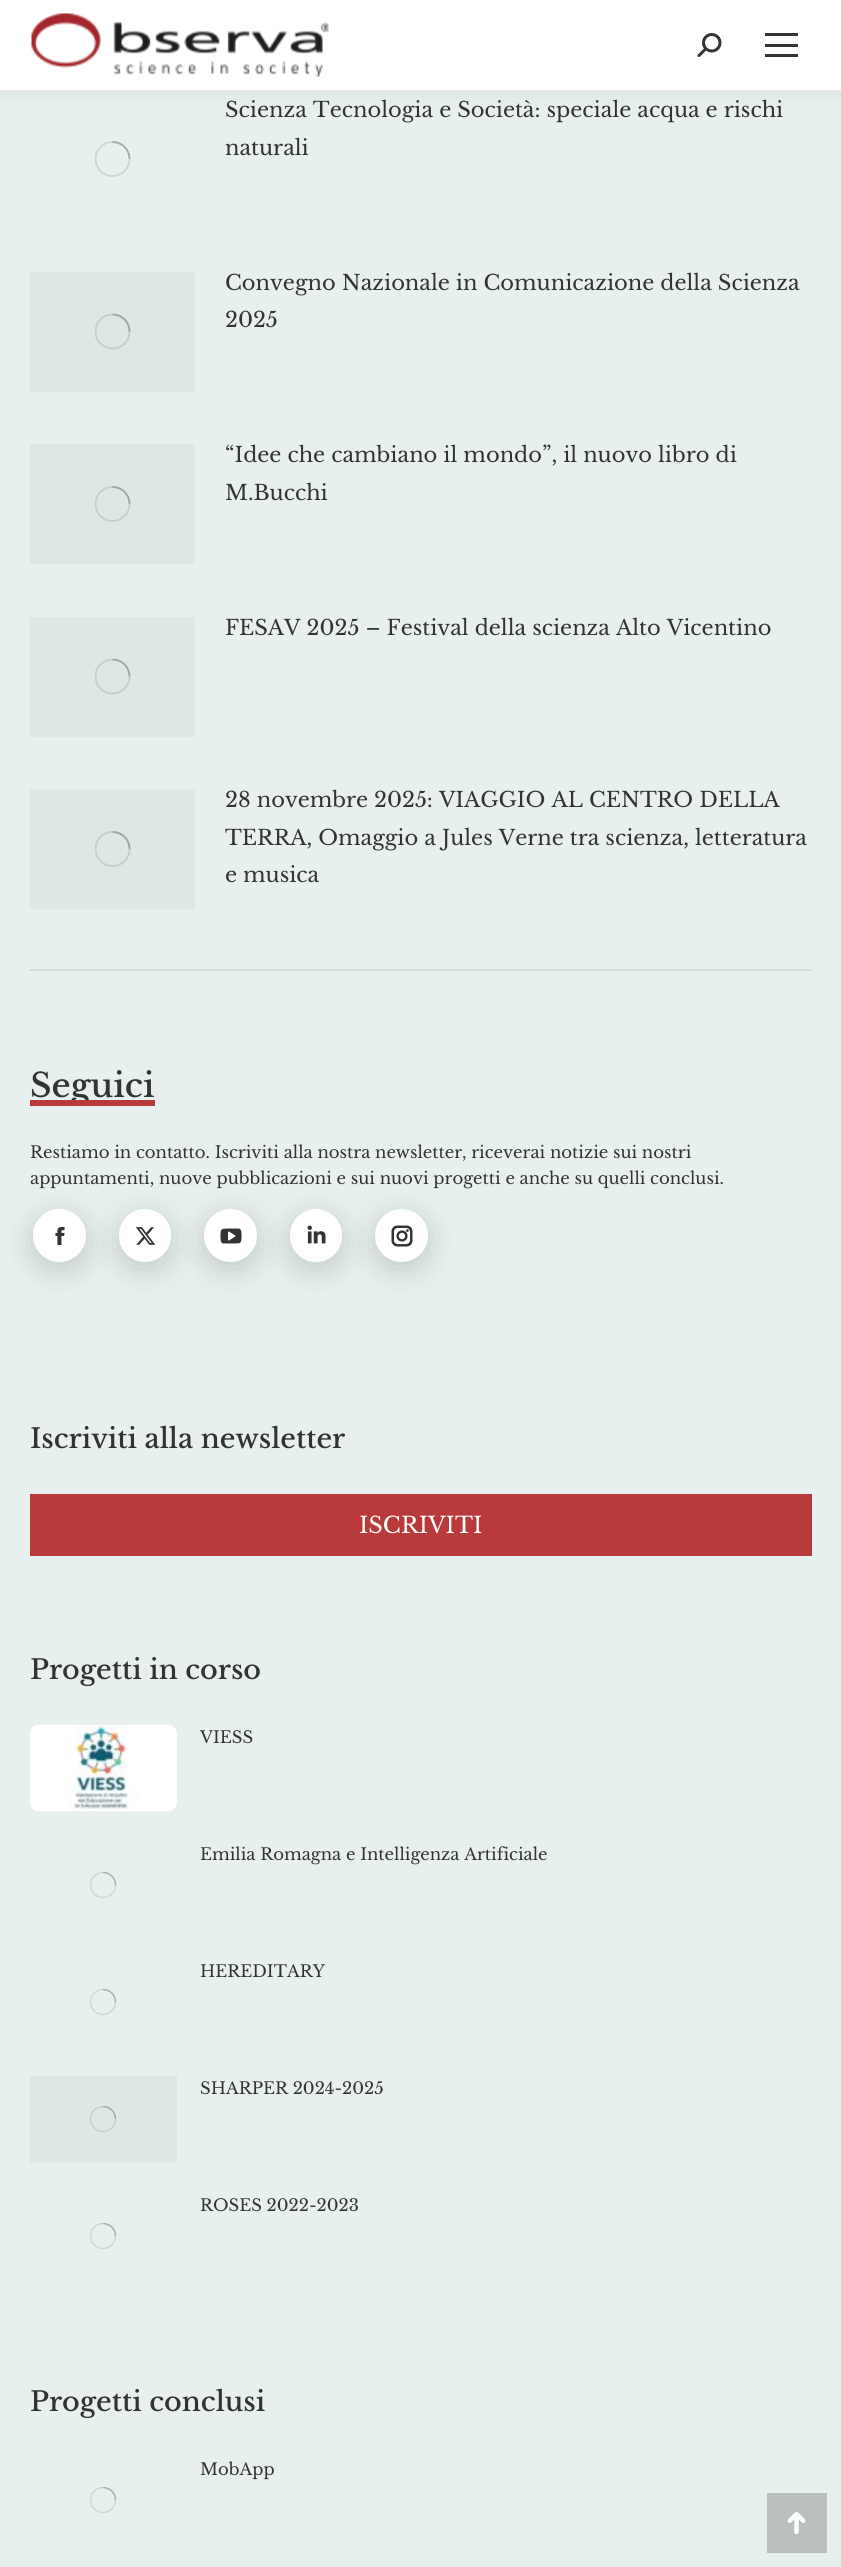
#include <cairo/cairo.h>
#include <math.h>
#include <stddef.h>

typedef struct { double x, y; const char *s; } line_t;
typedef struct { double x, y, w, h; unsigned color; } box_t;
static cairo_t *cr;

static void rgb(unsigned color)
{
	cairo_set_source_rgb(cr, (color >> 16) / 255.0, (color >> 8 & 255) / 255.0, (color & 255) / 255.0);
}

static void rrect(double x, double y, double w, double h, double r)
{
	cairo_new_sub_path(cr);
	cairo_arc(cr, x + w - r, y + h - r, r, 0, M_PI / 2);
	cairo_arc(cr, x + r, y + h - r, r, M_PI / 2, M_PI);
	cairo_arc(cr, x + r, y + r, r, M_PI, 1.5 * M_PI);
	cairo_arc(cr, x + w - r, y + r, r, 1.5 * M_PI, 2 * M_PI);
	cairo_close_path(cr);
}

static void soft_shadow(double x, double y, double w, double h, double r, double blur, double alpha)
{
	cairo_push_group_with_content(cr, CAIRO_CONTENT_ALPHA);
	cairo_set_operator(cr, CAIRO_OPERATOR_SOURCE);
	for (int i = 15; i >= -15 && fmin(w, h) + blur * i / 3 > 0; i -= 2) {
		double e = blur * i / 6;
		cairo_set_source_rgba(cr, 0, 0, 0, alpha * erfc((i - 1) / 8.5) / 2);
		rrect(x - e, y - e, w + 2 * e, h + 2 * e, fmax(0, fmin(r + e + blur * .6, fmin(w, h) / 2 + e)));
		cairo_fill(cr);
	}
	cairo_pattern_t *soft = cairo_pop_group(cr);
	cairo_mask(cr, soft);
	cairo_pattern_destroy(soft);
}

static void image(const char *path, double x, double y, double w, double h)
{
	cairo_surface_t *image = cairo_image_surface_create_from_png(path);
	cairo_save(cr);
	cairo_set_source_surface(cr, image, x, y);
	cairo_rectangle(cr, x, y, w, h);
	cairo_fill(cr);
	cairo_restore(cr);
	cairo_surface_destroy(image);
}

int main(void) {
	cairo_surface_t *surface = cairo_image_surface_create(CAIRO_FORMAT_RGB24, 841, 2567);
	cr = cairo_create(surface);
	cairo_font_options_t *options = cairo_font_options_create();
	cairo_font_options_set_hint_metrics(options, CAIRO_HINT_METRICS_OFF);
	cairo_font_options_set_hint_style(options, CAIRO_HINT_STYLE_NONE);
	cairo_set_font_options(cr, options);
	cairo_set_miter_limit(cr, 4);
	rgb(0xe7efef);
	cairo_paint(cr);
	rgb(0x000000);
	soft_shadow(-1, -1, 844, 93, 0, 11, 0.07);
	rgb(0xffffff);
	cairo_rectangle(cr, 0, 0, 841, 90);
	cairo_fill(cr);
	image("img/1.png", 31, 13, 298, 64);
	image("img/2.png", 697, 33, 25, 24);
	{
		static const box_t items[] = {
			{765, 33, 33, 3, 0x333333},
			{765, 44, 33, 3, 0x333333},
			{765, 54, 33, 3, 0x333333},
			{30, 969, 782, 2, 0xd5dcdc},
		};
		for (size_t i = 0; i < sizeof items / sizeof *items; i++) {
			rgb(items[i].color);
			cairo_rectangle(cr, items[i].x, items[i].y, items[i].w, items[i].h);
			cairo_fill(cr);
		}
	}
	cairo_save(cr);
	cairo_rectangle(cr, 95, 141, 36, 36);
	cairo_clip(cr);
	cairo_arc(cr, 112.5, 159, 17, 0, 2 * M_PI);
	rgb(0xced5d5);
	cairo_set_line_width(cr, 1.9);
	cairo_stroke(cr);
	cairo_restore(cr);
	cairo_new_path(cr);
	cairo_move_to(cr, 129.5, 159);
	cairo_curve_to(cr, 129.5, 149.5, 122, 142, 112.5, 142);
	cairo_set_source_rgba(cr, 0.2, 0.2, 0.2, 0.25);
	cairo_set_line_width(cr, 1.9);
	cairo_stroke(cr);
	rgb(0xdee6e6);
	cairo_rectangle(cr, 30, 272, 165, 120);
	cairo_fill(cr);
	cairo_save(cr);
	cairo_rectangle(cr, 95, 314, 36, 36);
	cairo_clip(cr);
	cairo_arc(cr, 112.5, 331.5, 17, 0, 2 * M_PI);
	rgb(0xc6cdcd);
	cairo_stroke(cr);
	cairo_restore(cr);
	cairo_new_path(cr);
	cairo_move_to(cr, 129.5, 331.5);
	cairo_curve_to(cr, 129.5, 322, 122, 314.5, 112.5, 314.5);
	cairo_set_source_rgba(cr, 0.2, 0.2, 0.2, 0.25);
	cairo_stroke(cr);
	rgb(0xdee6e6);
	cairo_rectangle(cr, 30, 444, 165, 120);
	cairo_fill(cr);
	cairo_save(cr);
	cairo_rectangle(cr, 95, 486, 36, 36);
	cairo_clip(cr);
	cairo_arc(cr, 112.5, 504, 17, 0, 2 * M_PI);
	rgb(0xc6cdcd);
	cairo_stroke(cr);
	cairo_restore(cr);
	cairo_new_path(cr);
	cairo_move_to(cr, 129.5, 504);
	cairo_curve_to(cr, 129.5, 494.5, 122, 487, 112.5, 487);
	cairo_set_source_rgba(cr, 0.2, 0.2, 0.2, 0.25);
	cairo_stroke(cr);
	rgb(0xdee6e6);
	cairo_rectangle(cr, 30, 617, 165, 120);
	cairo_fill(cr);
	cairo_save(cr);
	cairo_rectangle(cr, 95, 659, 36, 36);
	cairo_clip(cr);
	cairo_arc(cr, 112.5, 676.5, 17, 0, 2 * M_PI);
	rgb(0xc6cdcd);
	cairo_stroke(cr);
	cairo_restore(cr);
	cairo_new_path(cr);
	cairo_move_to(cr, 129.5, 676.5);
	cairo_curve_to(cr, 129.5, 667, 122, 659.5, 112.5, 659.5);
	cairo_set_source_rgba(cr, 0.2, 0.2, 0.2, 0.25);
	cairo_stroke(cr);
	rgb(0xdee6e6);
	cairo_rectangle(cr, 30, 789, 165, 120);
	cairo_fill(cr);
	cairo_save(cr);
	cairo_rectangle(cr, 95, 831, 36, 36);
	cairo_clip(cr);
	cairo_arc(cr, 112.5, 849, 17, 0, 2 * M_PI);
	rgb(0xc6cdcd);
	cairo_stroke(cr);
	cairo_restore(cr);
	cairo_new_path(cr);
	cairo_move_to(cr, 129.5, 849);
	cairo_curve_to(cr, 129.5, 839.5, 122, 832, 112.5, 832);
	cairo_set_source_rgba(cr, 0.2, 0.2, 0.2, 0.25);
	cairo_stroke(cr);
	rgb(0x000000);
	soft_shadow(33, 1217, 53, 52, 26, 15, 0.16);
	rgb(0xffffff);
	cairo_arc(cr, 59.5, 1235.5, 26.5, 0, 2 * M_PI);
	cairo_fill(cr);
	image("img/3.png", 55, 1227, 10, 18);
	rgb(0x000000);
	soft_shadow(119, 1217, 52, 52, 26, 15, 0.16);
	rgb(0xffffff);
	rrect(119, 1209, 52, 53, 26);
	cairo_fill(cr);
	image("img/4.png", 135, 1227, 21, 18);
	rgb(0x000000);
	soft_shadow(204, 1217, 53, 52, 26, 15, 0.16);
	rgb(0xffffff);
	cairo_arc(cr, 230.5, 1235.5, 26.5, 0, 2 * M_PI);
	cairo_fill(cr);
	image("img/5.png", 220, 1228, 22, 16);
	rgb(0x000000);
	soft_shadow(290, 1217, 52, 52, 26, 15, 0.16);
	rgb(0xffffff);
	rrect(290, 1209, 52, 53, 26);
	cairo_fill(cr);
	image("img/6.png", 307, 1225, 19, 19);
	rgb(0x000000);
	soft_shadow(375, 1217, 53, 52, 26, 15, 0.16);
	rgb(0xffffff);
	cairo_arc(cr, 401.5, 1235.5, 26.5, 0, 2 * M_PI);
	cairo_fill(cr);
	image("img/7.png", 391, 1225, 22, 22);
	rgb(0xb83a3a);
	cairo_rectangle(cr, 30, 1494, 782, 62);
	cairo_fill(cr);
	image("img/8.png", 30, 1724, 147, 88);
	cairo_save(cr);
	cairo_rectangle(cr, 90, 1872, 27, 27);
	cairo_clip(cr);
	cairo_arc(cr, 103, 1885, 12.5, 0, 2 * M_PI);
	rgb(0xced5d5);
	cairo_set_line_width(cr, 1.4);
	cairo_stroke(cr);
	cairo_restore(cr);
	cairo_new_path(cr);
	cairo_move_to(cr, 115.5, 1885);
	cairo_curve_to(cr, 115.5, 1878, 110, 1872.5, 103, 1872.5);
	cairo_set_source_rgba(cr, 0.2, 0.2, 0.2, 0.25);
	cairo_set_line_width(cr, 1.4);
	cairo_stroke(cr);
	cairo_save(cr);
	cairo_rectangle(cr, 90, 1989, 27, 27);
	cairo_clip(cr);
	cairo_arc(cr, 103, 2002, 12.5, 0, 2 * M_PI);
	rgb(0xced5d5);
	cairo_stroke(cr);
	cairo_restore(cr);
	cairo_new_path(cr);
	cairo_move_to(cr, 115.5, 2002);
	cairo_curve_to(cr, 115.5, 1995, 110, 1989.5, 103, 1989.5);
	cairo_stroke(cr);
	rgb(0xdee6e6);
	cairo_rectangle(cr, 30, 2076, 147, 87);
	cairo_fill(cr);
	cairo_save(cr);
	cairo_rectangle(cr, 90, 2106, 27, 27);
	cairo_clip(cr);
	cairo_arc(cr, 103, 2119, 12.5, 0, 2 * M_PI);
	rgb(0xc6cdcd);
	cairo_stroke(cr);
	cairo_restore(cr);
	cairo_new_path(cr);
	cairo_move_to(cr, 115.5, 2119);
	cairo_curve_to(cr, 115.5, 2112, 110, 2106.5, 103, 2106.5);
	cairo_set_source_rgba(cr, 0.2, 0.2, 0.2, 0.25);
	cairo_stroke(cr);
	cairo_save(cr);
	cairo_rectangle(cr, 90, 2223, 27, 27);
	cairo_clip(cr);
	cairo_arc(cr, 103, 2236, 12.5, 0, 2 * M_PI);
	rgb(0xced5d5);
	cairo_stroke(cr);
	cairo_restore(cr);
	cairo_new_path(cr);
	cairo_move_to(cr, 115.5, 2236);
	cairo_curve_to(cr, 115.5, 2229, 110, 2223.5, 103, 2223.5);
	cairo_stroke(cr);
	cairo_save(cr);
	cairo_rectangle(cr, 90, 2487, 27, 27);
	cairo_clip(cr);
	cairo_arc(cr, 103, 2500, 12.5, 0, 2 * M_PI);
	rgb(0xced5d5);
	cairo_stroke(cr);
	cairo_restore(cr);
	cairo_new_path(cr);
	cairo_move_to(cr, 115.5, 2500);
	cairo_curve_to(cr, 115.5, 2493, 110, 2487.5, 103, 2487.5);
	cairo_stroke(cr);
	rgb(0xb9bfbf);
	cairo_rectangle(cr, 767, 2493, 60, 60);
	cairo_fill(cr);
	image("img/9.png", 787, 2511, 19, 24);
	cairo_select_font_face(cr, "Libre Baskerville", CAIRO_FONT_SLANT_NORMAL, CAIRO_FONT_WEIGHT_NORMAL);
	cairo_set_font_size(cr, 21);
	rgb(0x333333);
	{
		static const line_t items[] = {
			{225, 117, "Scienza Tecnologia e Società: speciale acqua e rischi"},
			{225, 155, "naturali"},
			{225, 290, "Convegno Nazionale in Comunicazione della Scienza"},
			{225, 327, "2025"},
			{225, 462, "“Idee che cambiano il mondo”, il nuovo libro di"},
			{225, 500, "M.Bucchi"},
			{225, 635, "FESAV 2025 – Festival della scienza Alto Vicentino"},
			{225, 807, "28 novembre 2025: VIAGGIO AL CENTRO DELLA"},
			{225, 845, "TERRA, Omaggio a Jules Verne tra scienza, letteratura"},
			{225, 882, "e musica"},
		};
		for (size_t i = 0; i < sizeof items / sizeof *items; i++) {
			cairo_move_to(cr, items[i].x, items[i].y);
			cairo_show_text(cr, items[i].s);
		}
	}
	cairo_select_font_face(cr, "Libre Baskerville Medium", CAIRO_FONT_SLANT_NORMAL, CAIRO_FONT_WEIGHT_NORMAL);
	cairo_set_font_size(cr, 33);
	cairo_move_to(cr, 30, 1097);
	cairo_show_text(cr, "Seguici");
	rgb(0xb83a3a);
	cairo_rectangle(cr, 30, 1100, 125, 6);
	cairo_fill(cr);
	cairo_select_font_face(cr, "Libre Baskerville", CAIRO_FONT_SLANT_NORMAL, CAIRO_FONT_WEIGHT_NORMAL);
	cairo_set_font_size(cr, 16.5);
	rgb(0x333333);
	cairo_move_to(cr, 30, 1158);
	cairo_show_text(cr, "Restiamo in contatto. Iscriviti alla nostra newsletter, riceverai notizie sui nostri");
	cairo_move_to(cr, 30, 1184);
	cairo_show_text(cr, "appuntamenti, nuove pubblicazioni e sui nuovi progetti e anche su quelli conclusi.");
	cairo_select_font_face(cr, "Libre Baskerville Medium", CAIRO_FONT_SLANT_NORMAL, CAIRO_FONT_WEIGHT_NORMAL);
	cairo_set_font_size(cr, 27);
	cairo_move_to(cr, 30, 1448);
	cairo_show_text(cr, "Iscriviti alla newsletter");
	cairo_select_font_face(cr, "Libre Baskerville", CAIRO_FONT_SLANT_NORMAL, CAIRO_FONT_WEIGHT_NORMAL);
	cairo_set_font_size(cr, 22.5);
	rgb(0xffffff);
	cairo_move_to(cr, 359, 1533);
	cairo_show_text(cr, "ISCRIVITI");
	cairo_select_font_face(cr, "Libre Baskerville Medium", CAIRO_FONT_SLANT_NORMAL, CAIRO_FONT_WEIGHT_NORMAL);
	cairo_set_font_size(cr, 27);
	rgb(0x333333);
	cairo_move_to(cr, 30, 1679);
	cairo_show_text(cr, "Progetti in corso");
	cairo_select_font_face(cr, "Libre Baskerville", CAIRO_FONT_SLANT_NORMAL, CAIRO_FONT_WEIGHT_NORMAL);
	cairo_set_font_size(cr, 16.5);
	{
		static const line_t items[] = {
			{200, 1743, "VIESS"},
			{200, 1860, "Emilia Romagna e Intelligenza Artificiale"},
			{200, 1977, "HEREDITARY"},
			{200, 2094, "SHARPER 2024-2025"},
			{200, 2211, "ROSES 2022-2023"},
		};
		for (size_t i = 0; i < sizeof items / sizeof *items; i++) {
			cairo_move_to(cr, items[i].x, items[i].y);
			cairo_show_text(cr, items[i].s);
		}
	}
	cairo_select_font_face(cr, "Libre Baskerville Medium", CAIRO_FONT_SLANT_NORMAL, CAIRO_FONT_WEIGHT_NORMAL);
	cairo_set_font_size(cr, 27);
	cairo_move_to(cr, 30, 2411);
	cairo_show_text(cr, "Progetti conclusi");
	cairo_select_font_face(cr, "Libre Baskerville", CAIRO_FONT_SLANT_NORMAL, CAIRO_FONT_WEIGHT_NORMAL);
	cairo_set_font_size(cr, 16.5);
	cairo_move_to(cr, 200, 2475);
	cairo_show_text(cr, "MobApp");
	cairo_surface_write_to_png(surface, "page.png");
	cairo_font_options_destroy(options);
	cairo_destroy(cr);
	cairo_surface_destroy(surface);
	return 0;
}
